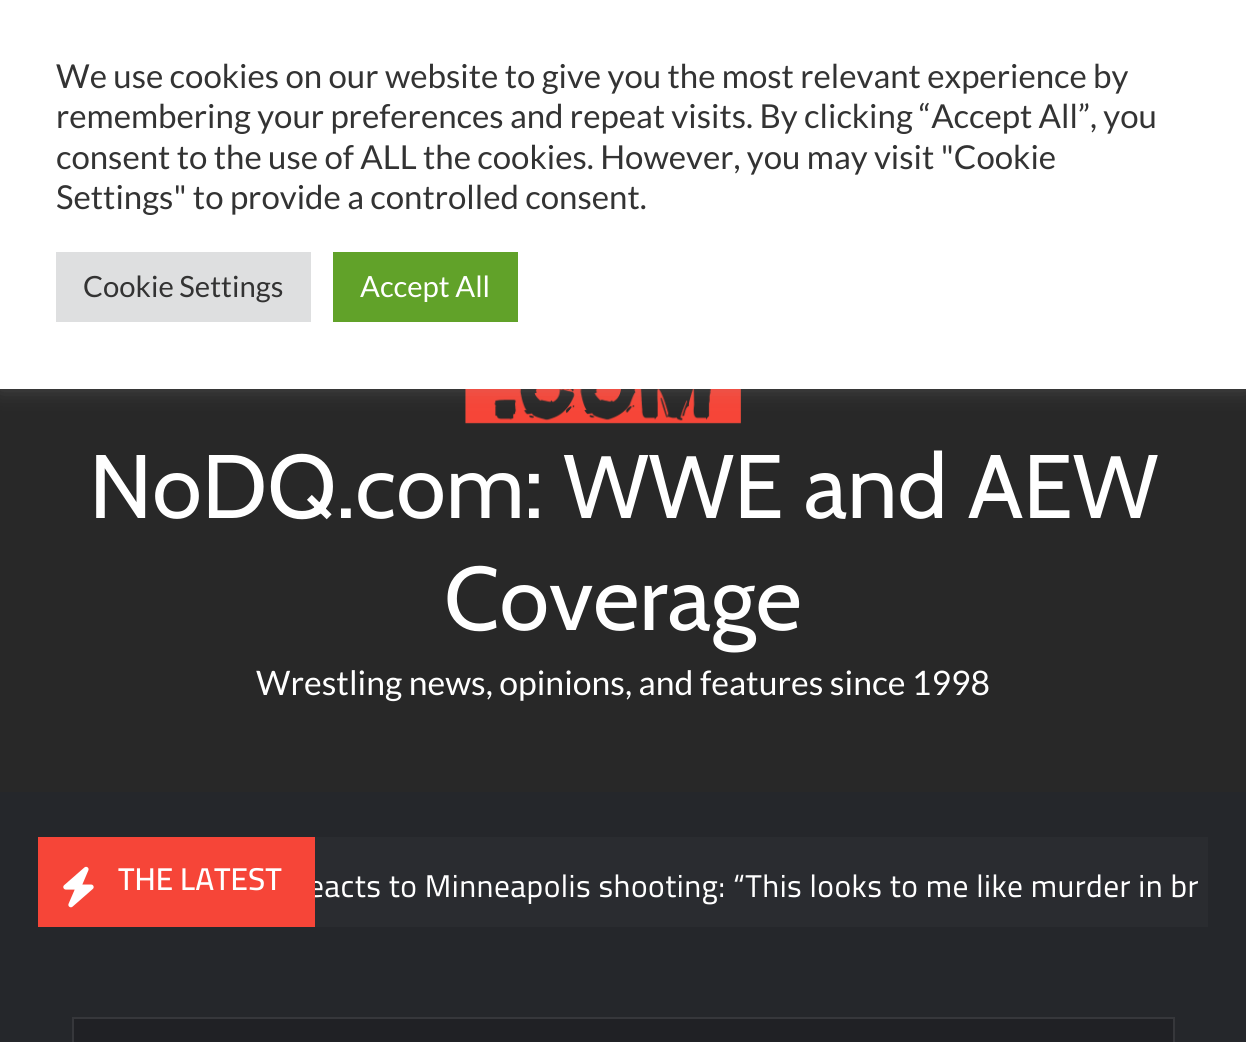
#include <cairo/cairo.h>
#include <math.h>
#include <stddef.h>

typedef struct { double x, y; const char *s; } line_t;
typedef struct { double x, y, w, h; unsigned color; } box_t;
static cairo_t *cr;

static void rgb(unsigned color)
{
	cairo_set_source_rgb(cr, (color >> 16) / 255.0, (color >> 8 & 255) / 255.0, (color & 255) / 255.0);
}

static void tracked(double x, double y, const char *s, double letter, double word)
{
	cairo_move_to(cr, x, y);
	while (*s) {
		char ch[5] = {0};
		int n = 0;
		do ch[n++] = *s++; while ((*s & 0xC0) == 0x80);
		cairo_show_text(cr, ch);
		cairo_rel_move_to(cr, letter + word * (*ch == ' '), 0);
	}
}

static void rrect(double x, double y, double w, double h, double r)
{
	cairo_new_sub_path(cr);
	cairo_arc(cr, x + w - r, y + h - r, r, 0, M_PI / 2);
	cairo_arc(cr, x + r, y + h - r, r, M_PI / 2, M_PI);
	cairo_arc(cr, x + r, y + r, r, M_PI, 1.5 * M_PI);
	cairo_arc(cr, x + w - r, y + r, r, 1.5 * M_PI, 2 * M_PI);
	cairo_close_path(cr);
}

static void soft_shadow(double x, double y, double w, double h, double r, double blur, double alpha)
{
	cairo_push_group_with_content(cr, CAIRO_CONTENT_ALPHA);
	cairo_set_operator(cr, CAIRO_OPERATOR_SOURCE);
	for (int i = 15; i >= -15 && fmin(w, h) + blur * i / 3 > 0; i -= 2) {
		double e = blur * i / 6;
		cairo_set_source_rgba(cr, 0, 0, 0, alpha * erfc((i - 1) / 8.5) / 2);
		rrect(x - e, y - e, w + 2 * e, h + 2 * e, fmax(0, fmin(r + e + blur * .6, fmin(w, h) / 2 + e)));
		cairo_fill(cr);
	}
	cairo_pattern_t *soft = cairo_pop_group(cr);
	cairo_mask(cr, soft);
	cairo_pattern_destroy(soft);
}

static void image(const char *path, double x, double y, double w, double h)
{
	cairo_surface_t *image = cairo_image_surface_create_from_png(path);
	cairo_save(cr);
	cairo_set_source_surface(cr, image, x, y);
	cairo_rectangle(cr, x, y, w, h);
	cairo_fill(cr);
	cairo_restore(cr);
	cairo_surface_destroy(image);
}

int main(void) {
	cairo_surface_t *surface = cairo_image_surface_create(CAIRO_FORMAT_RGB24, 1246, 1042);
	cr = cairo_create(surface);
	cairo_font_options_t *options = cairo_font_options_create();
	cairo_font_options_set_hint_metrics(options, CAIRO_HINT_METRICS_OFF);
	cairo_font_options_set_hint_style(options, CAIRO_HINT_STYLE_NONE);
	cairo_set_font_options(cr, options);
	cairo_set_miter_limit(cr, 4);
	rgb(0x25272b);
	cairo_paint(cr);
	rgb(0x282828);
	cairo_rectangle(cr, 0, 389, 1246, 403);
	cairo_fill(cr);
	image("img/1.png", 465, 389, 276, 35);
	rgb(0xacabab);
	soft_shadow(0, -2, 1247, 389, 0, 11, 0.3);
	{
		static const box_t items[] = {
			{0, 0, 1246, 389, 0xffffff},
			{56, 252, 255, 70, 0xdedfe0},
			{333, 252, 185, 70, 0x61a229},
			{315, 837, 893, 90, 0x2a2c30},
		};
		for (size_t i = 0; i < sizeof items / sizeof *items; i++) {
			rgb(items[i].color);
			cairo_rectangle(cr, items[i].x, items[i].y, items[i].w, items[i].h);
			cairo_fill(cr);
		}
	}
	rgb(0x202125);
	cairo_rectangle(cr, 73, 1018, 1101, 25);
	cairo_fill_preserve(cr);
	rgb(0x36373b);
	cairo_stroke(cr);
	cairo_select_font_face(cr, "Lato", CAIRO_FONT_SLANT_NORMAL, CAIRO_FONT_WEIGHT_NORMAL);
	cairo_set_font_size(cr, 33);
	rgb(0x333333);
	{
		static const line_t items[] = {
			{56, 88, "We use cookies on our website to give you the most relevant experience by"},
			{56, 128, "remembering your preferences and repeat visits. By clicking “Accept All”, you"},
			{56, 169, "consent to the use of ALL the cookies. However, you may visit \"Cookie"},
			{56, 209, "Settings\" to provide a controlled consent."},
		};
		for (size_t i = 0; i < sizeof items / sizeof *items; i++) {
			cairo_move_to(cr, items[i].x, items[i].y);
			cairo_show_text(cr, items[i].s);
		}
	}
	cairo_set_font_size(cr, 29.25);
	cairo_move_to(cr, 83, 297);
	cairo_show_text(cr, "Cookie Settings");
	rgb(0xffffff);
	cairo_move_to(cr, 360, 297);
	cairo_show_text(cr, "Accept All");
	cairo_select_font_face(cr, "Cabin", CAIRO_FONT_SLANT_NORMAL, CAIRO_FONT_WEIGHT_NORMAL);
	cairo_set_font_size(cr, 90);
	cairo_move_to(cr, 89, 518);
	cairo_show_text(cr, "NoDQ.com: WWE and AEW");
	cairo_move_to(cr, 444, 630);
	cairo_show_text(cr, "Coverage");
	cairo_select_font_face(cr, "Lato", CAIRO_FONT_SLANT_NORMAL, CAIRO_FONT_WEIGHT_NORMAL);
	cairo_set_font_size(cr, 33.75);
	cairo_move_to(cr, 256, 695);
	cairo_show_text(cr, "Wrestling news, opinions, and features since 1998");
	cairo_select_font_face(cr, "Cairo", CAIRO_FONT_SLANT_NORMAL, CAIRO_FONT_WEIGHT_NORMAL);
	cairo_set_font_size(cr, 31.5);
	tracked(308, 897, "eacts to Minneapolis shooting: “This looks to me like murder in br", 0.45, 0);
	rgb(0xf64538);
	cairo_rectangle(cr, 38, 837, 277, 90);
	cairo_fill(cr);
	cairo_select_font_face(cr, "Cairo SemiBold", CAIRO_FONT_SLANT_NORMAL, CAIRO_FONT_WEIGHT_NORMAL);
	rgb(0xffffff);
	cairo_move_to(cr, 118, 890);
	cairo_show_text(cr, "THE LATEST");
	image("img/2.png", 63, 866, 31, 42);
	cairo_surface_write_to_png(surface, "page.png");
	cairo_font_options_destroy(options);
	cairo_destroy(cr);
	cairo_surface_destroy(surface);
	return 0;
}
